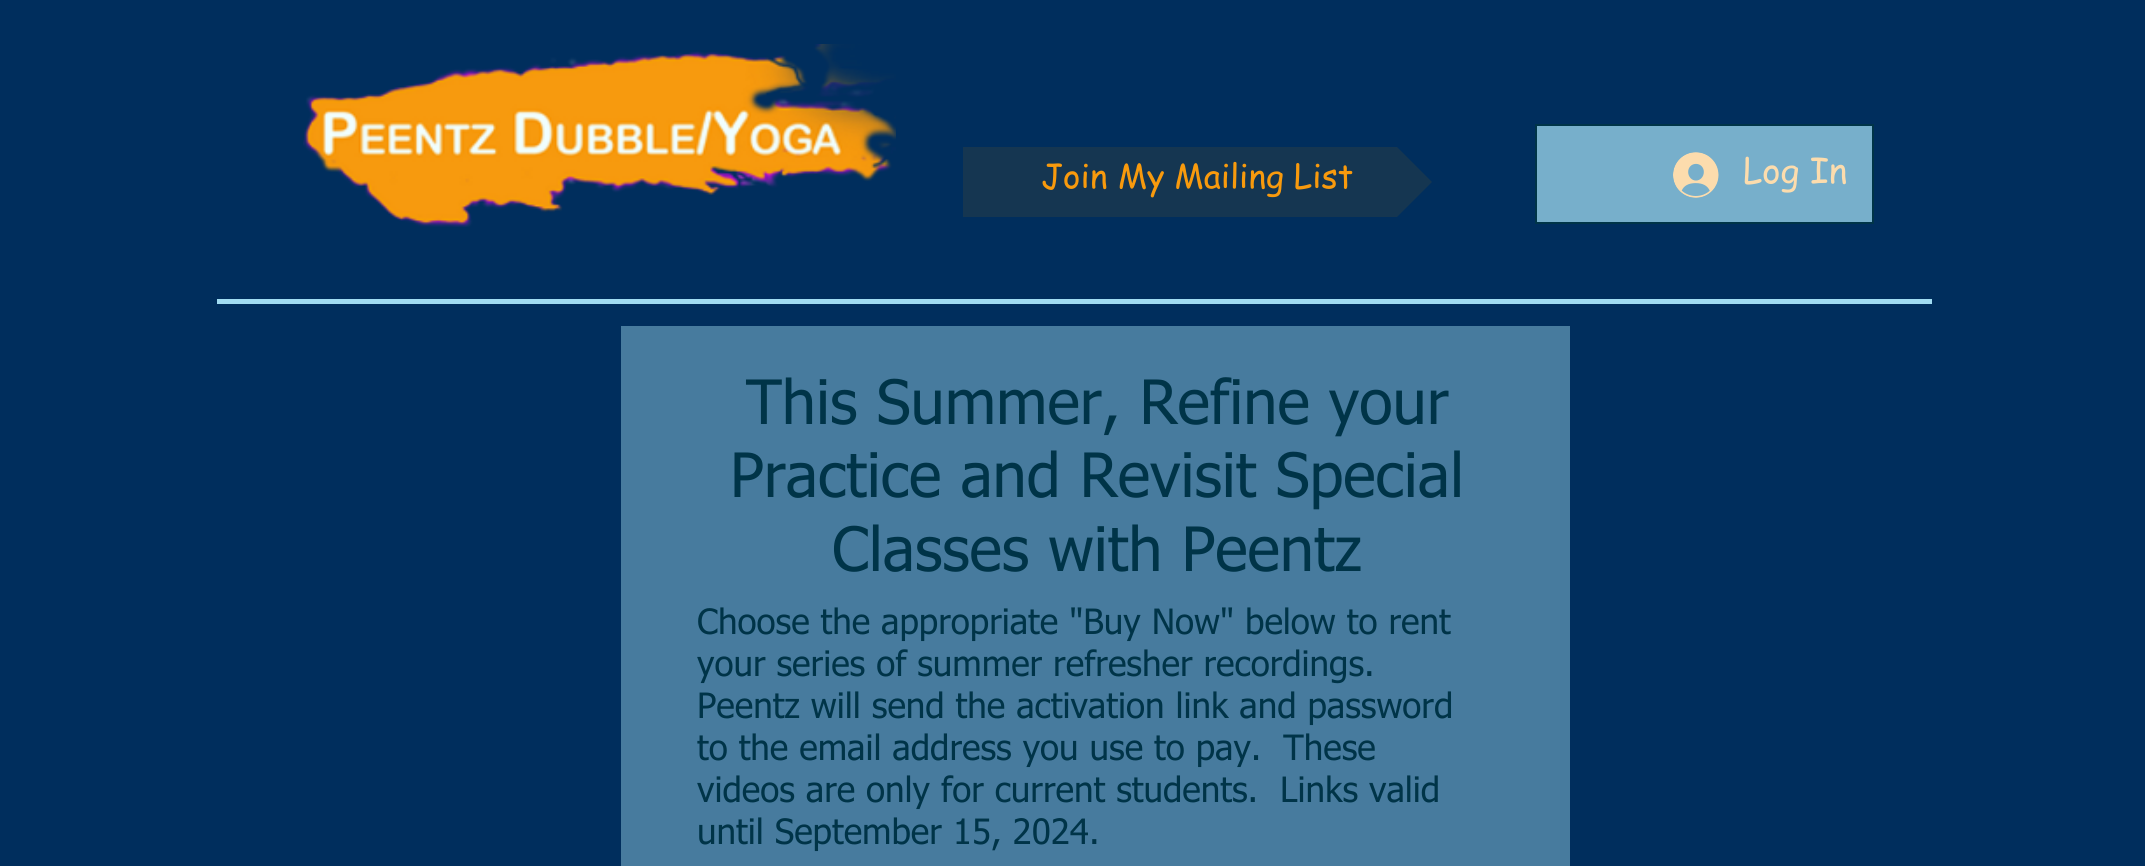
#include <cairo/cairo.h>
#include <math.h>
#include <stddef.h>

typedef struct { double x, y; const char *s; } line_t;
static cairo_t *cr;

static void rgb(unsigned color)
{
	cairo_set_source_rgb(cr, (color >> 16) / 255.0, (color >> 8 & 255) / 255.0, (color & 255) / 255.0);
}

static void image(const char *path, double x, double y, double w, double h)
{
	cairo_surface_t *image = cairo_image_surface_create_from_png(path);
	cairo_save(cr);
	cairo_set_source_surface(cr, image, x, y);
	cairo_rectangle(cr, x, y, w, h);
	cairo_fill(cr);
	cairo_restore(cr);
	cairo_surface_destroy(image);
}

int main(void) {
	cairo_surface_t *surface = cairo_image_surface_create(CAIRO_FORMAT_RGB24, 2145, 866);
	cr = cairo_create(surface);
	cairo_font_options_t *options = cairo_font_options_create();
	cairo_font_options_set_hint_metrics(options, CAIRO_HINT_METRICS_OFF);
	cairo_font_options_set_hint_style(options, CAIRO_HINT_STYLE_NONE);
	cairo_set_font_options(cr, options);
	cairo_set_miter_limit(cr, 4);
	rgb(0x002e5d);
	cairo_paint(cr);
	image("img/1.png", 303, 44, 593, 183);
	rgb(0x153651);
	cairo_rectangle(cr, 963, 147, 381, 70);
	cairo_fill(cr);
	cairo_save(cr);
	cairo_rectangle(cr, 963, 147, 469, 70);
	cairo_clip(cr);
	cairo_new_path(cr);
	cairo_move_to(cr, 1432, 182);
	cairo_line_to(cr, 1344, 182);
	cairo_line_to(cr, 1344, 94);
	cairo_close_path(cr);
	cairo_fill(cr);
	cairo_new_path(cr);
	cairo_move_to(cr, 1344, 182);
	cairo_line_to(cr, 1432, 182);
	cairo_line_to(cr, 1344, 270);
	cairo_close_path(cr);
	cairo_fill(cr);
	cairo_restore(cr);
	rgb(0x77afcb);
	cairo_rectangle(cr, 1536, 125, 337, 98);
	cairo_fill_preserve(cr);
	rgb(0x003448);
	cairo_stroke(cr);
	image("img/2.png", 1673, 152, 46, 46);
	rgb(0xa1dcf2);
	cairo_rectangle(cr, 217, 299, 1715, 5);
	cairo_fill(cr);
	rgb(0x477b9e);
	cairo_rectangle(cr, 621, 326, 949, 540);
	cairo_fill(cr);
	cairo_select_font_face(cr, "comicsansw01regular", CAIRO_FONT_SLANT_NORMAL, CAIRO_FONT_WEIGHT_NORMAL);
	cairo_set_font_size(cr, 33.25);
	rgb(0xf89a0d);
	cairo_move_to(cr, 1041, 188);
	cairo_show_text(cr, "Join My Mailing List");
	cairo_set_font_size(cr, 35);
	rgb(0xfcdcad);
	cairo_move_to(cr, 1743, 183);
	cairo_show_text(cr, "Log In");
	cairo_select_font_face(cr, "tahoma", CAIRO_FONT_SLANT_NORMAL, CAIRO_FONT_WEIGHT_NORMAL);
	cairo_set_font_size(cr, 61.25);
	rgb(0x003448);
	{
		static const line_t items[] = {
			{746, 424, "This Summer, Refine your"},
			{730, 497, "Practice and Revisit Special"},
			{832, 571, "Classes with Peentz"},
		};
		for (size_t i = 0; i < sizeof items / sizeof *items; i++) {
			cairo_move_to(cr, items[i].x, items[i].y);
			cairo_show_text(cr, items[i].s);
		}
	}
	cairo_set_font_size(cr, 35);
	{
		static const line_t items[] = {
			{697, 634, "Choose the appropriate \"Buy Now\" below to rent"},
			{697, 676, "your series of summer refresher recordings."},
			{697, 718, "Peentz will send the activation link and password"},
			{697, 760, "to the email address you use to pay.  These"},
			{697, 802, "videos are only for current students.  Links valid"},
			{697, 844, "until September 15, 2024."},
		};
		for (size_t i = 0; i < sizeof items / sizeof *items; i++) {
			cairo_move_to(cr, items[i].x, items[i].y);
			cairo_show_text(cr, items[i].s);
		}
	}
	cairo_surface_write_to_png(surface, "page.png");
	cairo_font_options_destroy(options);
	cairo_destroy(cr);
	cairo_surface_destroy(surface);
	return 0;
}
